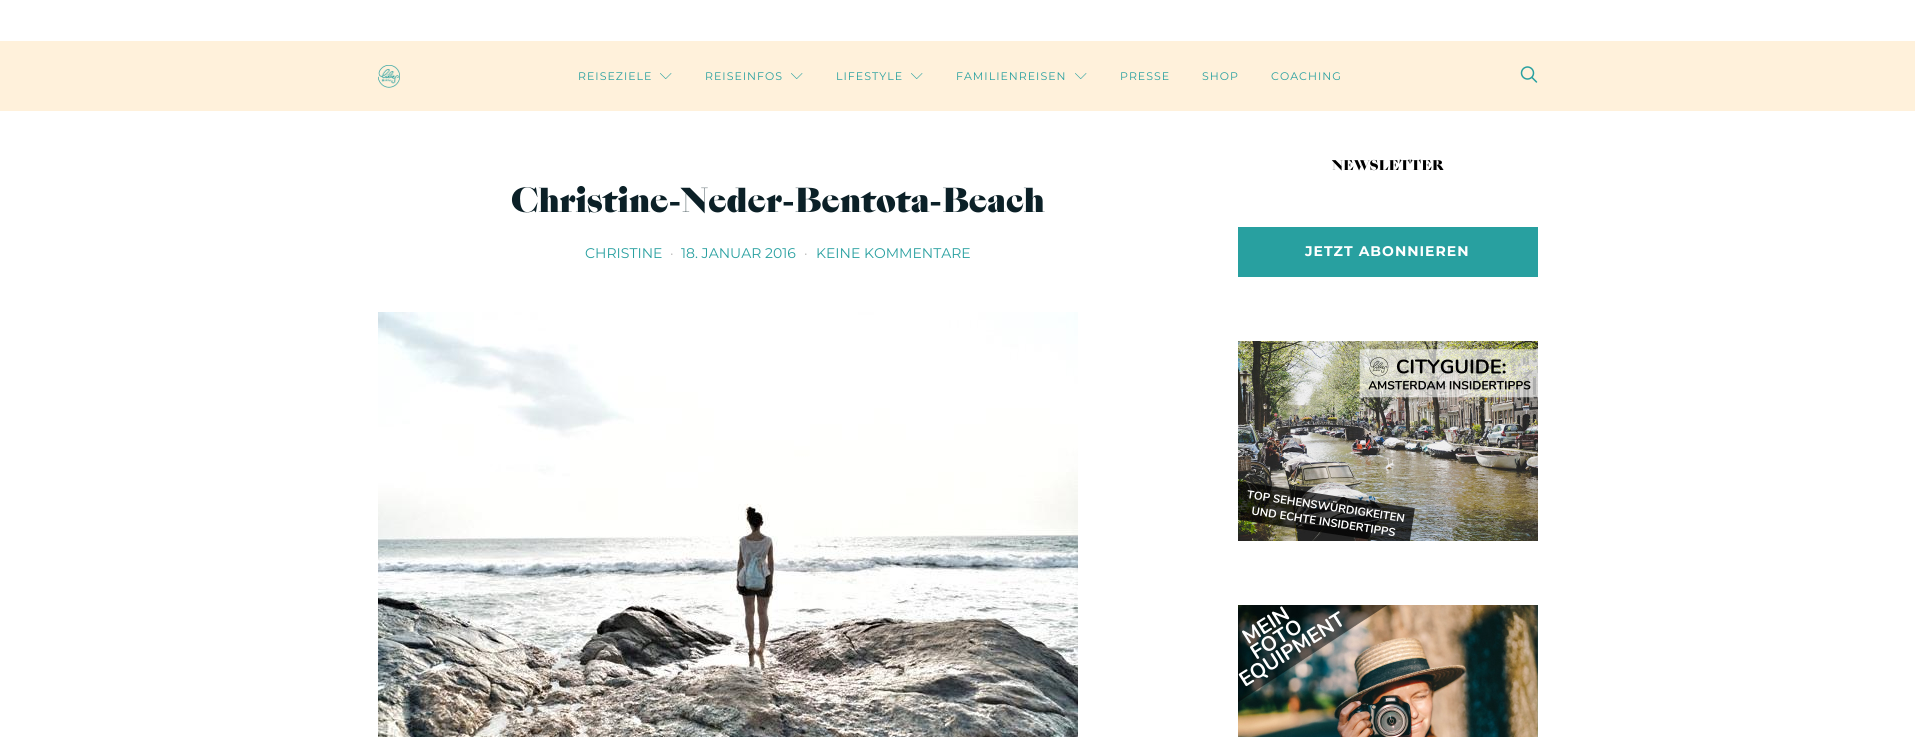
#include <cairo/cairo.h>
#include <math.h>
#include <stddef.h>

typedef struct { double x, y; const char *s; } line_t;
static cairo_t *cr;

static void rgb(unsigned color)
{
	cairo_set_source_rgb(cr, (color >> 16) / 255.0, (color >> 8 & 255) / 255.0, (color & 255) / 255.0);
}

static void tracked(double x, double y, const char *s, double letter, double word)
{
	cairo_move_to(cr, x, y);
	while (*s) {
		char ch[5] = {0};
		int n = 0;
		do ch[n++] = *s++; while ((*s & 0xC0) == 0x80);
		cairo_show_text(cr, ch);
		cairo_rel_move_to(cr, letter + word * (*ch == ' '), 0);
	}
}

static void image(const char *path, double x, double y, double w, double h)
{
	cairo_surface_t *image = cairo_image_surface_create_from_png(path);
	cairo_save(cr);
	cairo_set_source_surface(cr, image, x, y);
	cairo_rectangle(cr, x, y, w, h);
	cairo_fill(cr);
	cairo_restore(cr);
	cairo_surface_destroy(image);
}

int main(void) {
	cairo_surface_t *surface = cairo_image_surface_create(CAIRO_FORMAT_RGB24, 1915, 737);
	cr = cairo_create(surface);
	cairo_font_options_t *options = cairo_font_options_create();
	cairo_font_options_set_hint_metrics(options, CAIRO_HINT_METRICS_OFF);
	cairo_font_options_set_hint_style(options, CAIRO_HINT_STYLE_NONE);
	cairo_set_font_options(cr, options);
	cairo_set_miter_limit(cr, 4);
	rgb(0xffffff);
	cairo_paint(cr);
	rgb(0xfff1db);
	cairo_rectangle(cr, 0, 41, 1915, 70);
	cairo_fill(cr);
	image("img/1.png", 378, 65, 22, 23);
	image("img/2.png", 660, 73, 12, 6);
	image("img/2.png", 791, 73, 12, 6);
	image("img/2.png", 911, 73, 12, 6);
	image("img/2.png", 1075, 73, 12, 6);
	image("img/3.png", 1520, 66, 18, 17);
	image("img/4.png", 378, 312, 700, 425);
	rgb(0x28a0a0);
	cairo_rectangle(cr, 1238, 227, 300, 50);
	cairo_fill(cr);
	image("img/5.png", 1238, 341, 300, 200);
	image("img/6.png", 1238, 605, 300, 132);
	cairo_select_font_face(cr, "Montserrat", CAIRO_FONT_SLANT_NORMAL, CAIRO_FONT_WEIGHT_NORMAL);
	cairo_set_font_size(cr, 11);
	{
		static const line_t items[] = {
			{578, 80, "REISEZIELE"},
			{705, 80, "REISEINFOS"},
			{836, 80, "LIFESTYLE"},
			{956, 80, "FAMILIENREISEN"},
			{1120, 80, "PRESSE"},
			{1202, 80, "SHOP"},
			{1271, 80, "COACHING"},
		};
		for (size_t i = 0; i < sizeof items / sizeof *items; i++) {
			tracked(items[i].x, items[i].y, items[i].s, 1, 0);
		}
	}
	cairo_select_font_face(cr, "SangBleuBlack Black", CAIRO_FONT_SLANT_NORMAL, CAIRO_FONT_WEIGHT_NORMAL);
	cairo_set_font_size(cr, 32);
	rgb(0x0b2027);
	cairo_move_to(cr, 511, 212);
	cairo_show_text(cr, "Christine-Neder-Bentota-Beach");
	cairo_select_font_face(cr, "Montserrat", CAIRO_FONT_SLANT_NORMAL, CAIRO_FONT_WEIGHT_NORMAL);
	cairo_set_font_size(cr, 14);
	rgb(0x28a0a0);
	cairo_move_to(cr, 585, 258);
	cairo_show_text(cr, "CHRISTINE");
	rgb(0xb7b7b7);
	cairo_move_to(cr, 670, 258);
	cairo_show_text(cr, "·");
	rgb(0x28a0a0);
	cairo_move_to(cr, 681, 258);
	cairo_show_text(cr, "18. JANUAR 2016");
	rgb(0xb7b7b7);
	cairo_move_to(cr, 804, 258);
	cairo_show_text(cr, "·");
	rgb(0x28a0a0);
	cairo_move_to(cr, 816, 258);
	cairo_show_text(cr, "KEINE KOMMENTARE");
	cairo_select_font_face(cr, "SangBleuBlack Black", CAIRO_FONT_SLANT_NORMAL, CAIRO_FONT_WEIGHT_NORMAL);
	cairo_set_font_size(cr, 13);
	rgb(0x000000);
	tracked(1332, 170, "NEWSLETTER", 0.25, 0);
	cairo_select_font_face(cr, "Montserrat", CAIRO_FONT_SLANT_NORMAL, CAIRO_FONT_WEIGHT_BOLD);
	cairo_set_font_size(cr, 14);
	rgb(0xffffff);
	tracked(1305, 256, "JETZT ABONNIEREN", 1, 0);
	cairo_surface_write_to_png(surface, "page.png");
	cairo_font_options_destroy(options);
	cairo_destroy(cr);
	cairo_surface_destroy(surface);
	return 0;
}
